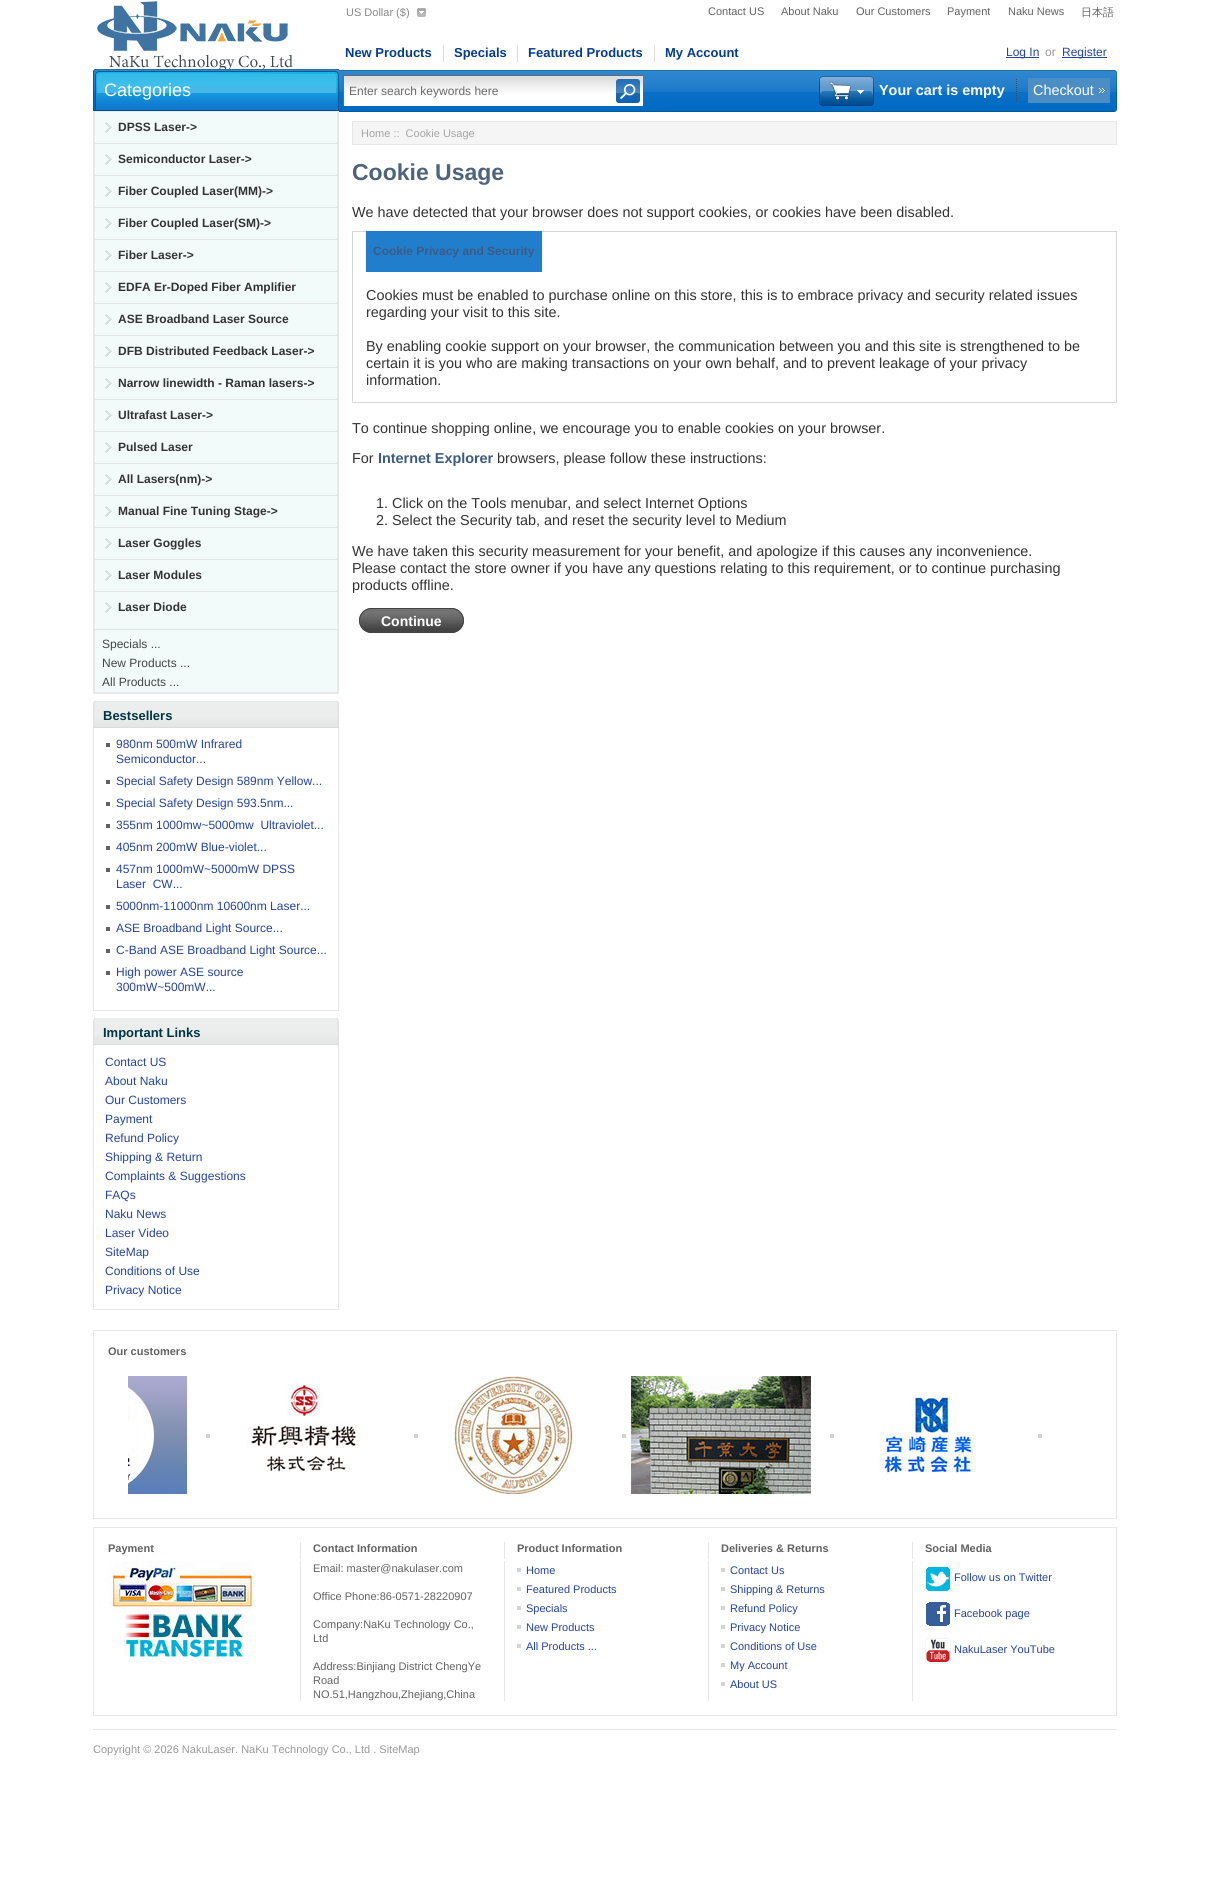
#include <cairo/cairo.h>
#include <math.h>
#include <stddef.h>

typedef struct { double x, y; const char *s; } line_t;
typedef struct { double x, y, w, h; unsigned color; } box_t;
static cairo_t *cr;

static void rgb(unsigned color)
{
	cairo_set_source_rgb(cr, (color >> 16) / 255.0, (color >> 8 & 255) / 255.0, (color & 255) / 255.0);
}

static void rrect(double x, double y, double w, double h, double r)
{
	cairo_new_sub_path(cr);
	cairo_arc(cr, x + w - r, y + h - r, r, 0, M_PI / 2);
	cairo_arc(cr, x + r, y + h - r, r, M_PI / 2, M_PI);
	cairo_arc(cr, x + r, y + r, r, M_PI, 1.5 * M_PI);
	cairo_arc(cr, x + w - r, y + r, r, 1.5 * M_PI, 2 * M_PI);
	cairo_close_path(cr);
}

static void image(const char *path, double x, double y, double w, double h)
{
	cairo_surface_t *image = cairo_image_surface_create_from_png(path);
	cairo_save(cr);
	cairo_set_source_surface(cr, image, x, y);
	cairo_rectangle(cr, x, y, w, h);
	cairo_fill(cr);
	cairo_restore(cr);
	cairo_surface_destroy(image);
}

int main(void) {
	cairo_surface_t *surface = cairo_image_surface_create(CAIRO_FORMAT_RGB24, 1210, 1903);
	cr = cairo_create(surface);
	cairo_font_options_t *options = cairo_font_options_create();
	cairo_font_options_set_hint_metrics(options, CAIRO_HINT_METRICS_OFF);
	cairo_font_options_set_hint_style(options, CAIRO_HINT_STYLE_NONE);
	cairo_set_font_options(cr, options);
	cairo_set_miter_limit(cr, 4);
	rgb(0xffffff);
	cairo_paint(cr);
	image("img/1.png", 97, 1, 196, 68);
	image("img/2.png", 417, 8, 9, 9);
	{
		static const box_t items[] = {
			{443, 45, 1, 17, 0xdcdcdc},
			{517, 45, 1, 17, 0xdcdcdc},
			{654, 45, 1, 17, 0xdcdcdc},
			{1006, 57, 33, 1, 0x25449e},
			{1062, 57, 45, 1, 0x25449e},
		};
		for (size_t i = 0; i < sizeof items / sizeof *items; i++) {
			rgb(items[i].color);
			cairo_rectangle(cr, items[i].x, items[i].y, items[i].w, items[i].h);
			cairo_fill(cr);
		}
	}
	image("img/3.png", 339, 70, 384, 42);
	image("img/4.png", 723, 70, 394, 42);
	image("img/5.png", 344, 76, 299, 30);
	rgb(0x696969);
	cairo_rectangle(cr, 343, 75, 300, 1);
	cairo_fill(cr);
	cairo_rectangle(cr, 343, 75, 1, 31);
	cairo_fill(cr);
	image("img/6.png", 616, 79, 24, 24);
	image("img/7.png", 819, 76, 55, 30);
	image("img/8.png", 1016, 79, 1, 23);
	rgb(0x4c8dc3);
	cairo_rectangle(cr, 1028, 78, 82, 25);
	cairo_fill(cr);
	image("img/9.png", 1099, 88, 6, 5);
	image("img/10.png", 93, 69, 50, 42);
	image("img/11.png", 143, 69, 196, 42);
	{
		static const box_t items[] = {
			{95, 112, 242, 580, 0xf3fafa},
			{93, 111, 246, 1, 0xe8e8e8},
			{337, 111, 2, 583, 0xe8e8e8},
			{93, 692, 246, 2, 0xe8e8e8},
			{93, 111, 2, 583, 0xe8e8e8},
		};
		for (size_t i = 0; i < sizeof items / sizeof *items; i++) {
			rgb(items[i].color);
			cairo_rectangle(cr, items[i].x, items[i].y, items[i].w, items[i].h);
			cairo_fill(cr);
		}
	}
	image("img/12.png", 105, 122, 7, 11);
	rgb(0xe5e5e5);
	cairo_rectangle(cr, 95, 143, 242, 1);
	cairo_fill(cr);
	image("img/12.png", 105, 154, 7, 11);
	cairo_rectangle(cr, 95, 175, 242, 1);
	cairo_fill(cr);
	image("img/12.png", 105, 186, 7, 11);
	cairo_rectangle(cr, 95, 207, 242, 1);
	cairo_fill(cr);
	image("img/12.png", 105, 218, 7, 11);
	cairo_rectangle(cr, 95, 239, 242, 1);
	cairo_fill(cr);
	image("img/12.png", 105, 250, 7, 11);
	cairo_rectangle(cr, 95, 271, 242, 1);
	cairo_fill(cr);
	image("img/12.png", 105, 282, 7, 11);
	cairo_rectangle(cr, 95, 303, 242, 1);
	cairo_fill(cr);
	image("img/12.png", 105, 314, 7, 11);
	cairo_rectangle(cr, 95, 335, 242, 1);
	cairo_fill(cr);
	image("img/12.png", 105, 346, 7, 11);
	cairo_rectangle(cr, 95, 367, 242, 1);
	cairo_fill(cr);
	image("img/12.png", 105, 378, 7, 11);
	cairo_rectangle(cr, 95, 399, 242, 1);
	cairo_fill(cr);
	image("img/12.png", 105, 410, 7, 11);
	cairo_rectangle(cr, 95, 431, 242, 1);
	cairo_fill(cr);
	image("img/12.png", 105, 442, 7, 11);
	cairo_rectangle(cr, 95, 463, 242, 1);
	cairo_fill(cr);
	image("img/12.png", 105, 474, 7, 11);
	cairo_rectangle(cr, 95, 495, 242, 1);
	cairo_fill(cr);
	image("img/12.png", 105, 506, 7, 11);
	cairo_rectangle(cr, 95, 527, 242, 1);
	cairo_fill(cr);
	image("img/12.png", 105, 538, 7, 11);
	cairo_rectangle(cr, 95, 559, 242, 1);
	cairo_fill(cr);
	image("img/12.png", 105, 570, 7, 11);
	cairo_rectangle(cr, 95, 591, 242, 1);
	cairo_fill(cr);
	image("img/12.png", 105, 602, 7, 11);
	rgb(0xe4e4e4);
	cairo_rectangle(cr, 95, 629, 242, 1);
	cairo_fill(cr);
	image("img/13.png", 93, 701, 50, 27);
	image("img/14.png", 143, 701, 196, 27);
	{
		static const box_t items[] = {
			{338, 728, 1, 283, 0xe6e6e6},
			{93, 1010, 246, 1, 0xe6e6e6},
			{93, 728, 1, 283, 0xe6e6e6},
			{106, 743, 4, 4, 0x626262},
			{106, 780, 4, 4, 0x626262},
			{106, 802, 4, 4, 0x626262},
			{106, 824, 4, 4, 0x626262},
			{106, 846, 4, 4, 0x626262},
			{106, 868, 4, 4, 0x626262},
			{106, 905, 4, 4, 0x626262},
			{106, 927, 4, 4, 0x626262},
			{106, 949, 4, 4, 0x626262},
			{106, 971, 4, 4, 0x626262},
		};
		for (size_t i = 0; i < sizeof items / sizeof *items; i++) {
			rgb(items[i].color);
			cairo_rectangle(cr, items[i].x, items[i].y, items[i].w, items[i].h);
			cairo_fill(cr);
		}
	}
	image("img/13.png", 93, 1018, 50, 27);
	image("img/14.png", 143, 1018, 196, 27);
	{
		static const box_t items[] = {
			{338, 1045, 1, 265, 0xe6e6e6},
			{93, 1309, 246, 1, 0xe6e6e6},
			{93, 1045, 1, 265, 0xe6e6e6},
		};
		for (size_t i = 0; i < sizeof items / sizeof *items; i++) {
			rgb(items[i].color);
			cairo_rectangle(cr, items[i].x, items[i].y, items[i].w, items[i].h);
			cairo_fill(cr);
		}
	}
	rgb(0xf5f5f5);
	cairo_rectangle(cr, 352.5, 121.5, 764, 23);
	cairo_fill_preserve(cr);
	rgb(0xe7e7e7);
	cairo_set_line_width(cr, 1);
	cairo_stroke(cr);
	cairo_rectangle(cr, 352.5, 231.5, 764, 171);
	rgb(0xd6d6d6);
	cairo_stroke(cr);
	rgb(0x217ecc);
	cairo_rectangle(cr, 366, 231, 176, 41);
	cairo_fill(cr);
	rgb(0x444444);
	rrect(359, 608, 105, 25, 12.5);
	cairo_fill(cr);
	image("img/15.png", 359, 609, 105, 19);
	rrect(359.5, 608.5, 104, 24, 12);
	cairo_stroke(cr);
	cairo_rectangle(cr, 93.5, 1330.5, 1023, 188);
	rgb(0xe7e7e7);
	cairo_stroke(cr);
	image("img/16.png", 128, 1376, 59, 118);
	rgb(0xd0d4d5);
	cairo_rectangle(cr, 206, 1434, 4, 4);
	cairo_fill(cr);
	image("img/17.png", 247, 1384, 112, 88);
	cairo_rectangle(cr, 414, 1434, 4, 4);
	cairo_fill(cr);
	image("img/18.png", 447, 1376, 128, 118);
	cairo_rectangle(cr, 622, 1434, 4, 4);
	cairo_fill(cr);
	image("img/19.png", 631, 1376, 180, 118);
	cairo_rectangle(cr, 830, 1434, 4, 4);
	cairo_fill(cr);
	image("img/20.png", 879, 1392, 96, 83);
	cairo_rectangle(cr, 1038, 1434, 4, 4);
	cairo_fill(cr);
	cairo_rectangle(cr, 93.5, 1527.5, 1023, 188);
	rgb(0xe7e7e7);
	cairo_stroke(cr);
	{
		static const box_t items[] = {
			{300, 1542, 1, 17, 0xe7e7e7},
			{504, 1542, 1, 17, 0xe7e7e7},
			{708, 1542, 1, 17, 0xe7e7e7},
			{912, 1542, 1, 17, 0xe7e7e7},
		};
		for (size_t i = 0; i < sizeof items / sizeof *items; i++) {
			rgb(items[i].color);
			cairo_rectangle(cr, items[i].x, items[i].y, items[i].w, items[i].h);
			cairo_fill(cr);
		}
	}
	image("img/21.png", 108, 1561, 144, 96);
	{
		static const box_t items[] = {
			{300, 1561, 1, 140, 0xe7e7e7},
			{504, 1561, 1, 140, 0xe7e7e7},
			{517, 1568, 4, 4, 0xd0d4d5},
			{517, 1587, 4, 4, 0xd0d4d5},
			{517, 1606, 4, 4, 0xd0d4d5},
			{517, 1625, 4, 4, 0xd0d4d5},
			{517, 1644, 4, 4, 0xd0d4d5},
			{708, 1561, 1, 140, 0xe7e7e7},
			{721, 1568, 4, 4, 0xd0d4d5},
			{721, 1587, 4, 4, 0xd0d4d5},
			{721, 1606, 4, 4, 0xd0d4d5},
			{721, 1625, 4, 4, 0xd0d4d5},
			{721, 1644, 4, 4, 0xd0d4d5},
			{721, 1663, 4, 4, 0xd0d4d5},
			{721, 1682, 4, 4, 0xd0d4d5},
			{912, 1561, 1, 140, 0xe7e7e7},
		};
		for (size_t i = 0; i < sizeof items / sizeof *items; i++) {
			rgb(items[i].color);
			cairo_rectangle(cr, items[i].x, items[i].y, items[i].w, items[i].h);
			cairo_fill(cr);
		}
	}
	image("img/22.png", 926, 1567, 24, 24);
	image("img/23.png", 926, 1602, 24, 24);
	image("img/24.png", 925, 1638, 26, 26);
	cairo_rectangle(cr, 93, 1729, 1024, 1);
	cairo_fill(cr);
	cairo_select_font_face(cr, "Liberation Sans", CAIRO_FONT_SLANT_NORMAL, CAIRO_FONT_WEIGHT_NORMAL);
	cairo_set_font_size(cr, 11);
	rgb(0x888888);
	cairo_move_to(cr, 346, 16);
	cairo_show_text(cr, "US Dollar ($)");
	rgb(0x626262);
	{
		static const line_t items[] = {
			{708, 15, "Contact US"},
			{781, 15, "About Naku"},
			{856, 15, "Our Customers"},
			{947, 15, "Payment"},
			{1008, 15, "Naku News"},
		};
		for (size_t i = 0; i < sizeof items / sizeof *items; i++) {
			cairo_move_to(cr, items[i].x, items[i].y);
			cairo_show_text(cr, items[i].s);
		}
	}
	cairo_select_font_face(cr, "WenQuanYi Zen Hei Medium", CAIRO_FONT_SLANT_NORMAL, CAIRO_FONT_WEIGHT_NORMAL);
	cairo_move_to(cr, 1081, 16);
	cairo_show_text(cr, "日本語");
	cairo_select_font_face(cr, "Liberation Sans", CAIRO_FONT_SLANT_NORMAL, CAIRO_FONT_WEIGHT_BOLD);
	cairo_set_font_size(cr, 13);
	rgb(0x053c90);
	{
		static const line_t items[] = {
			{345, 57, "New Products"},
			{454, 57, "Specials"},
			{528, 57, "Featured Products"},
			{665, 57, "My Account"},
		};
		for (size_t i = 0; i < sizeof items / sizeof *items; i++) {
			cairo_move_to(cr, items[i].x, items[i].y);
			cairo_show_text(cr, items[i].s);
		}
	}
	cairo_select_font_face(cr, "Liberation Sans", CAIRO_FONT_SLANT_NORMAL, CAIRO_FONT_WEIGHT_NORMAL);
	cairo_set_font_size(cr, 12);
	rgb(0x25449e);
	cairo_move_to(cr, 1006, 56);
	cairo_show_text(cr, "Log In");
	rgb(0x999999);
	cairo_move_to(cr, 1045, 56);
	cairo_show_text(cr, "or");
	rgb(0x25449e);
	cairo_move_to(cr, 1062, 56);
	cairo_show_text(cr, "Register");
	rgb(0x696969);
	cairo_move_to(cr, 349, 95);
	cairo_show_text(cr, "Enter search keywords here");
	cairo_select_font_face(cr, "Liberation Sans", CAIRO_FONT_SLANT_NORMAL, CAIRO_FONT_WEIGHT_BOLD);
	cairo_set_font_size(cr, 14.4);
	rgb(0xffffff);
	cairo_move_to(cr, 879, 95);
	cairo_show_text(cr, "Your cart is empty");
	cairo_select_font_face(cr, "Liberation Sans", CAIRO_FONT_SLANT_NORMAL, CAIRO_FONT_WEIGHT_NORMAL);
	cairo_move_to(cr, 1033, 95);
	cairo_show_text(cr, "Checkout");
	cairo_set_font_size(cr, 18);
	cairo_move_to(cr, 104, 96);
	cairo_show_text(cr, "Categories");
	cairo_select_font_face(cr, "Liberation Sans", CAIRO_FONT_SLANT_NORMAL, CAIRO_FONT_WEIGHT_BOLD);
	cairo_set_font_size(cr, 12);
	rgb(0x333333);
	{
		static const line_t items[] = {
			{118, 131, "DPSS Laser->"},
			{118, 163, "Semiconductor Laser->"},
			{118, 195, "Fiber Coupled Laser(MM)->"},
			{118, 227, "Fiber Coupled Laser(SM)->"},
			{118, 259, "Fiber Laser->"},
			{118, 291, "EDFA Er-Doped Fiber Amplifier"},
			{118, 323, "ASE Broadband Laser Source"},
			{118, 355, "DFB Distributed Feedback Laser->"},
			{118, 387, "Narrow linewidth - Raman lasers->"},
			{118, 419, "Ultrafast Laser->"},
			{118, 451, "Pulsed Laser"},
			{118, 483, "All Lasers(nm)->"},
			{118, 515, "Manual Fine Tuning Stage->"},
			{118, 547, "Laser Goggles"},
			{118, 579, "Laser Modules"},
			{118, 611, "Laser Diode"},
		};
		for (size_t i = 0; i < sizeof items / sizeof *items; i++) {
			cairo_move_to(cr, items[i].x, items[i].y);
			cairo_show_text(cr, items[i].s);
		}
	}
	cairo_select_font_face(cr, "Liberation Sans", CAIRO_FONT_SLANT_NORMAL, CAIRO_FONT_WEIGHT_NORMAL);
	rgb(0x444444);
	{
		static const line_t items[] = {
			{102, 648, "Specials ..."},
			{102, 667, "New Products ..."},
			{102, 686, "All Products ..."},
		};
		for (size_t i = 0; i < sizeof items / sizeof *items; i++) {
			cairo_move_to(cr, items[i].x, items[i].y);
			cairo_show_text(cr, items[i].s);
		}
	}
	cairo_select_font_face(cr, "Liberation Sans", CAIRO_FONT_SLANT_NORMAL, CAIRO_FONT_WEIGHT_BOLD);
	cairo_set_font_size(cr, 13);
	rgb(0x003542);
	cairo_move_to(cr, 103, 720);
	cairo_show_text(cr, "Bestsellers");
	cairo_select_font_face(cr, "Liberation Sans", CAIRO_FONT_SLANT_NORMAL, CAIRO_FONT_WEIGHT_NORMAL);
	cairo_set_font_size(cr, 12);
	rgb(0x25449e);
	{
		static const line_t items[] = {
			{116, 748, "980nm 500mW Infrared"},
			{116, 763, "Semiconductor..."},
			{116, 785, "Special Safety Design 589nm Yellow..."},
			{116, 807, "Special Safety Design 593.5nm..."},
			{116, 829, "355nm 1000mw~5000mw  Ultraviolet..."},
			{116, 851, "405nm 200mW Blue-violet..."},
			{116, 873, "457nm 1000mW~5000mW DPSS"},
			{116, 888, "Laser  CW..."},
			{116, 910, "5000nm-11000nm 10600nm Laser..."},
			{116, 932, "ASE Broadband Light Source..."},
			{116, 954, "C-Band ASE Broadband Light Source..."},
			{116, 976, "High power ASE source"},
			{116, 991, "300mW~500mW..."},
		};
		for (size_t i = 0; i < sizeof items / sizeof *items; i++) {
			cairo_move_to(cr, items[i].x, items[i].y);
			cairo_show_text(cr, items[i].s);
		}
	}
	cairo_select_font_face(cr, "Liberation Sans", CAIRO_FONT_SLANT_NORMAL, CAIRO_FONT_WEIGHT_BOLD);
	cairo_set_font_size(cr, 13);
	rgb(0x003542);
	cairo_move_to(cr, 103, 1037);
	cairo_show_text(cr, "Important Links");
	cairo_select_font_face(cr, "Liberation Sans", CAIRO_FONT_SLANT_NORMAL, CAIRO_FONT_WEIGHT_NORMAL);
	cairo_set_font_size(cr, 12);
	rgb(0x25449e);
	{
		static const line_t items[] = {
			{105, 1066, "Contact US"},
			{105, 1085, "About Naku"},
			{105, 1104, "Our Customers"},
			{105, 1123, "Payment"},
			{105, 1142, "Refund Policy"},
			{105, 1161, "Shipping & Return"},
			{105, 1180, "Complaints & Suggestions"},
			{105, 1199, "FAQs"},
			{105, 1218, "Naku News"},
			{105, 1237, "Laser Video"},
			{105, 1256, "SiteMap"},
			{105, 1275, "Conditions of Use"},
			{105, 1294, "Privacy Notice"},
		};
		for (size_t i = 0; i < sizeof items / sizeof *items; i++) {
			cairo_move_to(cr, items[i].x, items[i].y);
			cairo_show_text(cr, items[i].s);
		}
	}
	cairo_set_font_size(cr, 11);
	rgb(0xa5a5a5);
	cairo_move_to(cr, 361, 137);
	cairo_show_text(cr, "Home ::  Cookie Usage");
	cairo_select_font_face(cr, "Liberation Sans", CAIRO_FONT_SLANT_NORMAL, CAIRO_FONT_WEIGHT_BOLD);
	cairo_set_font_size(cr, 23);
	rgb(0x4e637e);
	cairo_move_to(cr, 352, 180);
	cairo_show_text(cr, "Cookie Usage");
	cairo_select_font_face(cr, "Liberation Sans", CAIRO_FONT_SLANT_NORMAL, CAIRO_FONT_WEIGHT_NORMAL);
	cairo_set_font_size(cr, 14.4);
	rgb(0x333333);
	cairo_move_to(cr, 352, 217);
	cairo_show_text(cr, "We have detected that your browser does not support cookies, or cookies have been disabled.");
	cairo_select_font_face(cr, "Liberation Sans", CAIRO_FONT_SLANT_NORMAL, CAIRO_FONT_WEIGHT_BOLD);
	cairo_set_font_size(cr, 12);
	rgb(0x3b5b82);
	cairo_move_to(cr, 373, 255);
	cairo_show_text(cr, "Cookie Privacy and Security");
	cairo_select_font_face(cr, "Liberation Sans", CAIRO_FONT_SLANT_NORMAL, CAIRO_FONT_WEIGHT_NORMAL);
	cairo_set_font_size(cr, 14.4);
	rgb(0x333333);
	{
		static const line_t items[] = {
			{366, 300, "Cookies must be enabled to purchase online on this store, this is to embrace privacy and security related issues"},
			{366, 317, "regarding your visit to this site."},
			{366, 351, "By enabling cookie support on your browser, the communication between you and this site is strengthened to be"},
			{366, 368, "certain it is you who are making transactions on your own behalf, and to prevent leakage of your privacy"},
			{366, 385, "information."},
			{352, 433, "To continue shopping online, we encourage you to enable cookies on your browser."},
			{352, 463, "For"},
		};
		for (size_t i = 0; i < sizeof items / sizeof *items; i++) {
			cairo_move_to(cr, items[i].x, items[i].y);
			cairo_show_text(cr, items[i].s);
		}
	}
	cairo_select_font_face(cr, "Liberation Sans", CAIRO_FONT_SLANT_NORMAL, CAIRO_FONT_WEIGHT_BOLD);
	rgb(0x3b5b82);
	cairo_move_to(cr, 378, 463);
	cairo_show_text(cr, "Internet Explorer");
	cairo_select_font_face(cr, "Liberation Sans", CAIRO_FONT_SLANT_NORMAL, CAIRO_FONT_WEIGHT_NORMAL);
	rgb(0x333333);
	{
		static const line_t items[] = {
			{497, 463, "browsers, please follow these instructions:"},
			{376, 508, "1. Click on the Tools menubar, and select Internet Options"},
			{376, 525, "2. Select the Security tab, and reset the security level to Medium"},
			{352, 556, "We have taken this security measurement for your benefit, and apologize if this causes any inconvenience."},
			{352, 573, "Please contact the store owner if you have any questions relating to this requirement, or to continue purchasing"},
			{352, 590, "products offline."},
		};
		for (size_t i = 0; i < sizeof items / sizeof *items; i++) {
			cairo_move_to(cr, items[i].x, items[i].y);
			cairo_show_text(cr, items[i].s);
		}
	}
	cairo_select_font_face(cr, "Liberation Sans", CAIRO_FONT_SLANT_NORMAL, CAIRO_FONT_WEIGHT_BOLD);
	cairo_set_font_size(cr, 14);
	rgb(0xffffff);
	cairo_move_to(cr, 381, 626);
	cairo_show_text(cr, "Continue");
	cairo_set_font_size(cr, 11);
	rgb(0x626262);
	{
		static const line_t items[] = {
			{108, 1355, "Our customers"},
			{108, 1552, "Payment"},
			{313, 1552, "Contact Information"},
			{517, 1552, "Product Information"},
			{721, 1552, "Deliveries & Returns"},
			{925, 1552, "Social Media"},
		};
		for (size_t i = 0; i < sizeof items / sizeof *items; i++) {
			cairo_move_to(cr, items[i].x, items[i].y);
			cairo_show_text(cr, items[i].s);
		}
	}
	cairo_select_font_face(cr, "Liberation Sans", CAIRO_FONT_SLANT_NORMAL, CAIRO_FONT_WEIGHT_NORMAL);
	{
		static const line_t items[] = {
			{313, 1572, "Email: master@nakulaser.com"},
			{313, 1600, "Office Phone:86-0571-28220907"},
			{313, 1628, "Company:NaKu Technology Co.,"},
			{313, 1642, "Ltd"},
			{313, 1670, "Address:Binjiang District ChengYe"},
			{313, 1684, "Road"},
			{313, 1698, "NO.51,Hangzhou,Zhejiang,China"},
		};
		for (size_t i = 0; i < sizeof items / sizeof *items; i++) {
			cairo_move_to(cr, items[i].x, items[i].y);
			cairo_show_text(cr, items[i].s);
		}
	}
	rgb(0x25449e);
	{
		static const line_t items[] = {
			{526, 1574, "Home"},
			{526, 1593, "Featured Products"},
			{526, 1612, "Specials"},
			{526, 1631, "New Products"},
			{526, 1650, "All Products ..."},
			{730, 1574, "Contact Us"},
			{730, 1593, "Shipping & Returns"},
			{730, 1612, "Refund Policy"},
			{730, 1631, "Privacy Notice"},
			{730, 1650, "Conditions of Use"},
			{730, 1669, "My Account"},
			{730, 1688, "About US"},
			{954, 1581, "Follow us on Twitter"},
			{954, 1617, "Facebook page"},
			{954, 1653, "NakuLaser YouTube"},
		};
		for (size_t i = 0; i < sizeof items / sizeof *items; i++) {
			cairo_move_to(cr, items[i].x, items[i].y);
			cairo_show_text(cr, items[i].s);
		}
	}
	rgb(0x999999);
	cairo_move_to(cr, 93, 1753);
	cairo_show_text(cr, "Copyright © 2026 NakuLaser. NaKu Technology Co., Ltd . SiteMap");
	cairo_surface_write_to_png(surface, "page.png");
	cairo_font_options_destroy(options);
	cairo_destroy(cr);
	cairo_surface_destroy(surface);
	return 0;
}
